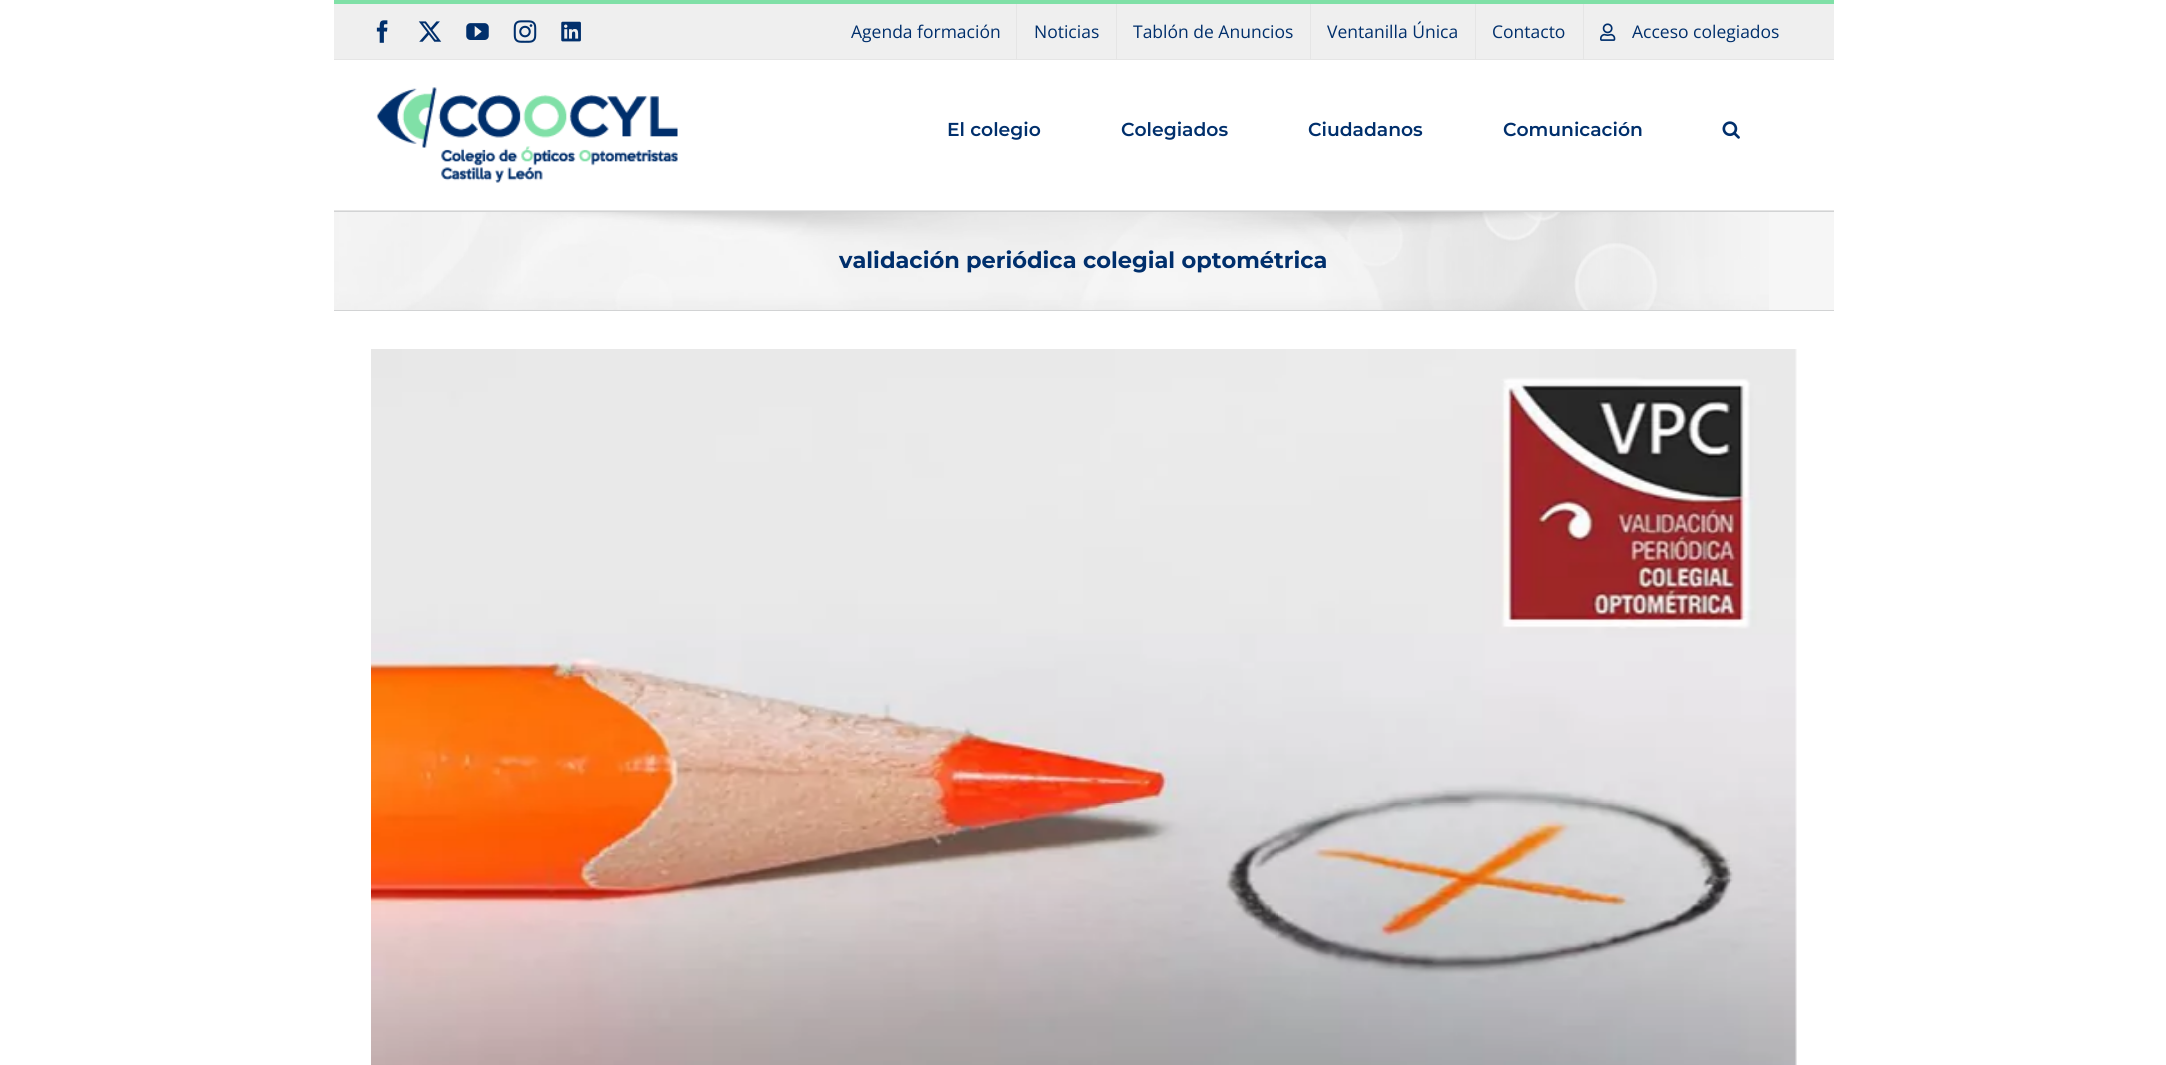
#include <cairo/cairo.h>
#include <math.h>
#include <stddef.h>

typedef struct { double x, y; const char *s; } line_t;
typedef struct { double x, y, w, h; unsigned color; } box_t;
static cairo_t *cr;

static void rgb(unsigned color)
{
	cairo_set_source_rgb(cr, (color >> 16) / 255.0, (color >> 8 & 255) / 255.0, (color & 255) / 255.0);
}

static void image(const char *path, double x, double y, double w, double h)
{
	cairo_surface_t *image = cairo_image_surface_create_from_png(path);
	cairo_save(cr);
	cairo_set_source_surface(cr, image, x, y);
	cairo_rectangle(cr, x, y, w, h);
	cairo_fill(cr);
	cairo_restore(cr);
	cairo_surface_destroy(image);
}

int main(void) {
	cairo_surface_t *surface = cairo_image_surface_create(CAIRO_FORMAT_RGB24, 2166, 1065);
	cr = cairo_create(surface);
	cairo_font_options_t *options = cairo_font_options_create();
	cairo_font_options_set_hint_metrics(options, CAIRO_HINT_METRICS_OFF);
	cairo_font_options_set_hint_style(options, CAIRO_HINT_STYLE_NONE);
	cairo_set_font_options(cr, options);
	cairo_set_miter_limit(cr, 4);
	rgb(0xffffff);
	cairo_paint(cr);
	{
		static const box_t items[] = {
			{334, 4, 1500, 55, 0xefefef},
			{334, 0, 1500, 4, 0x80e0a7},
			{334, 59, 1500, 1, 0xe5e5e5},
		};
		for (size_t i = 0; i < sizeof items / sizeof *items; i++) {
			rgb(items[i].color);
			cairo_rectangle(cr, items[i].x, items[i].y, items[i].w, items[i].h);
			cairo_fill(cr);
		}
	}
	image("img/1.png", 376, 20, 12, 23);
	image("img/2.png", 418, 21, 24, 21);
	image("img/3.png", 466, 23, 23, 17);
	image("img/4.png", 513, 20, 24, 23);
	image("img/5.png", 561, 21, 20, 21);
	{
		static const box_t items[] = {
			{1016, 4, 1, 55, 0xe5e5e5},
			{1116, 4, 1, 55, 0xe5e5e5},
			{1310, 4, 1, 55, 0xe5e5e5},
			{1475, 4, 1, 55, 0xe5e5e5},
			{1583, 4, 1, 55, 0xe5e5e5},
		};
		for (size_t i = 0; i < sizeof items / sizeof *items; i++) {
			rgb(items[i].color);
			cairo_rectangle(cr, items[i].x, items[i].y, items[i].w, items[i].h);
			cairo_fill(cr);
		}
	}
	image("img/6.png", 1600, 23, 16, 18);
	cairo_rectangle(cr, 334, 210, 1500, 1);
	cairo_fill(cr);
	image("img/7.png", 376, 87, 302, 96);
	image("img/8.png", 1722, 121, 18, 18);
	rgb(0xf6f6f6);
	cairo_rectangle(cr, 334, 212, 1500, 98);
	cairo_fill(cr);
	image("img/9.png", 334, 212, 1435, 98);
	rgb(0xd2d3d4);
	cairo_rectangle(cr, 334, 211, 1500, 1);
	cairo_fill(cr);
	cairo_rectangle(cr, 334, 310, 1500, 1);
	cairo_fill(cr);
	image("img/10.png", 371, 349, 1426, 716);
	cairo_select_font_face(cr, "Open Sans", CAIRO_FONT_SLANT_NORMAL, CAIRO_FONT_WEIGHT_NORMAL);
	cairo_set_font_size(cr, 17.5);
	rgb(0x002f6c);
	{
		static const line_t items[] = {
			{851, 38, "Agenda formación"},
			{1034, 38, "Noticias"},
			{1133, 38, "Tablón de Anuncios"},
			{1327, 38, "Ventanilla Única"},
			{1492, 38, "Contacto"},
			{1632, 38, "Acceso colegiados"},
		};
		for (size_t i = 0; i < sizeof items / sizeof *items; i++) {
			cairo_move_to(cr, items[i].x, items[i].y);
			cairo_show_text(cr, items[i].s);
		}
	}
	cairo_select_font_face(cr, "Montserrat SemiBold", CAIRO_FONT_SLANT_NORMAL, CAIRO_FONT_WEIGHT_NORMAL);
	cairo_set_font_size(cr, 18.75);
	{
		static const line_t items[] = {
			{947, 136, "El colegio"},
			{1121, 136, "Colegiados"},
			{1308, 136, "Ciudadanos"},
			{1503, 136, "Comunicación"},
		};
		for (size_t i = 0; i < sizeof items / sizeof *items; i++) {
			cairo_move_to(cr, items[i].x, items[i].y);
			cairo_show_text(cr, items[i].s);
		}
	}
	cairo_select_font_face(cr, "Montserrat", CAIRO_FONT_SLANT_NORMAL, CAIRO_FONT_WEIGHT_BOLD);
	cairo_set_font_size(cr, 22.5);
	cairo_move_to(cr, 839, 268);
	cairo_show_text(cr, "validación periódica colegial optométrica");
	cairo_surface_write_to_png(surface, "page.png");
	cairo_font_options_destroy(options);
	cairo_destroy(cr);
	cairo_surface_destroy(surface);
	return 0;
}
